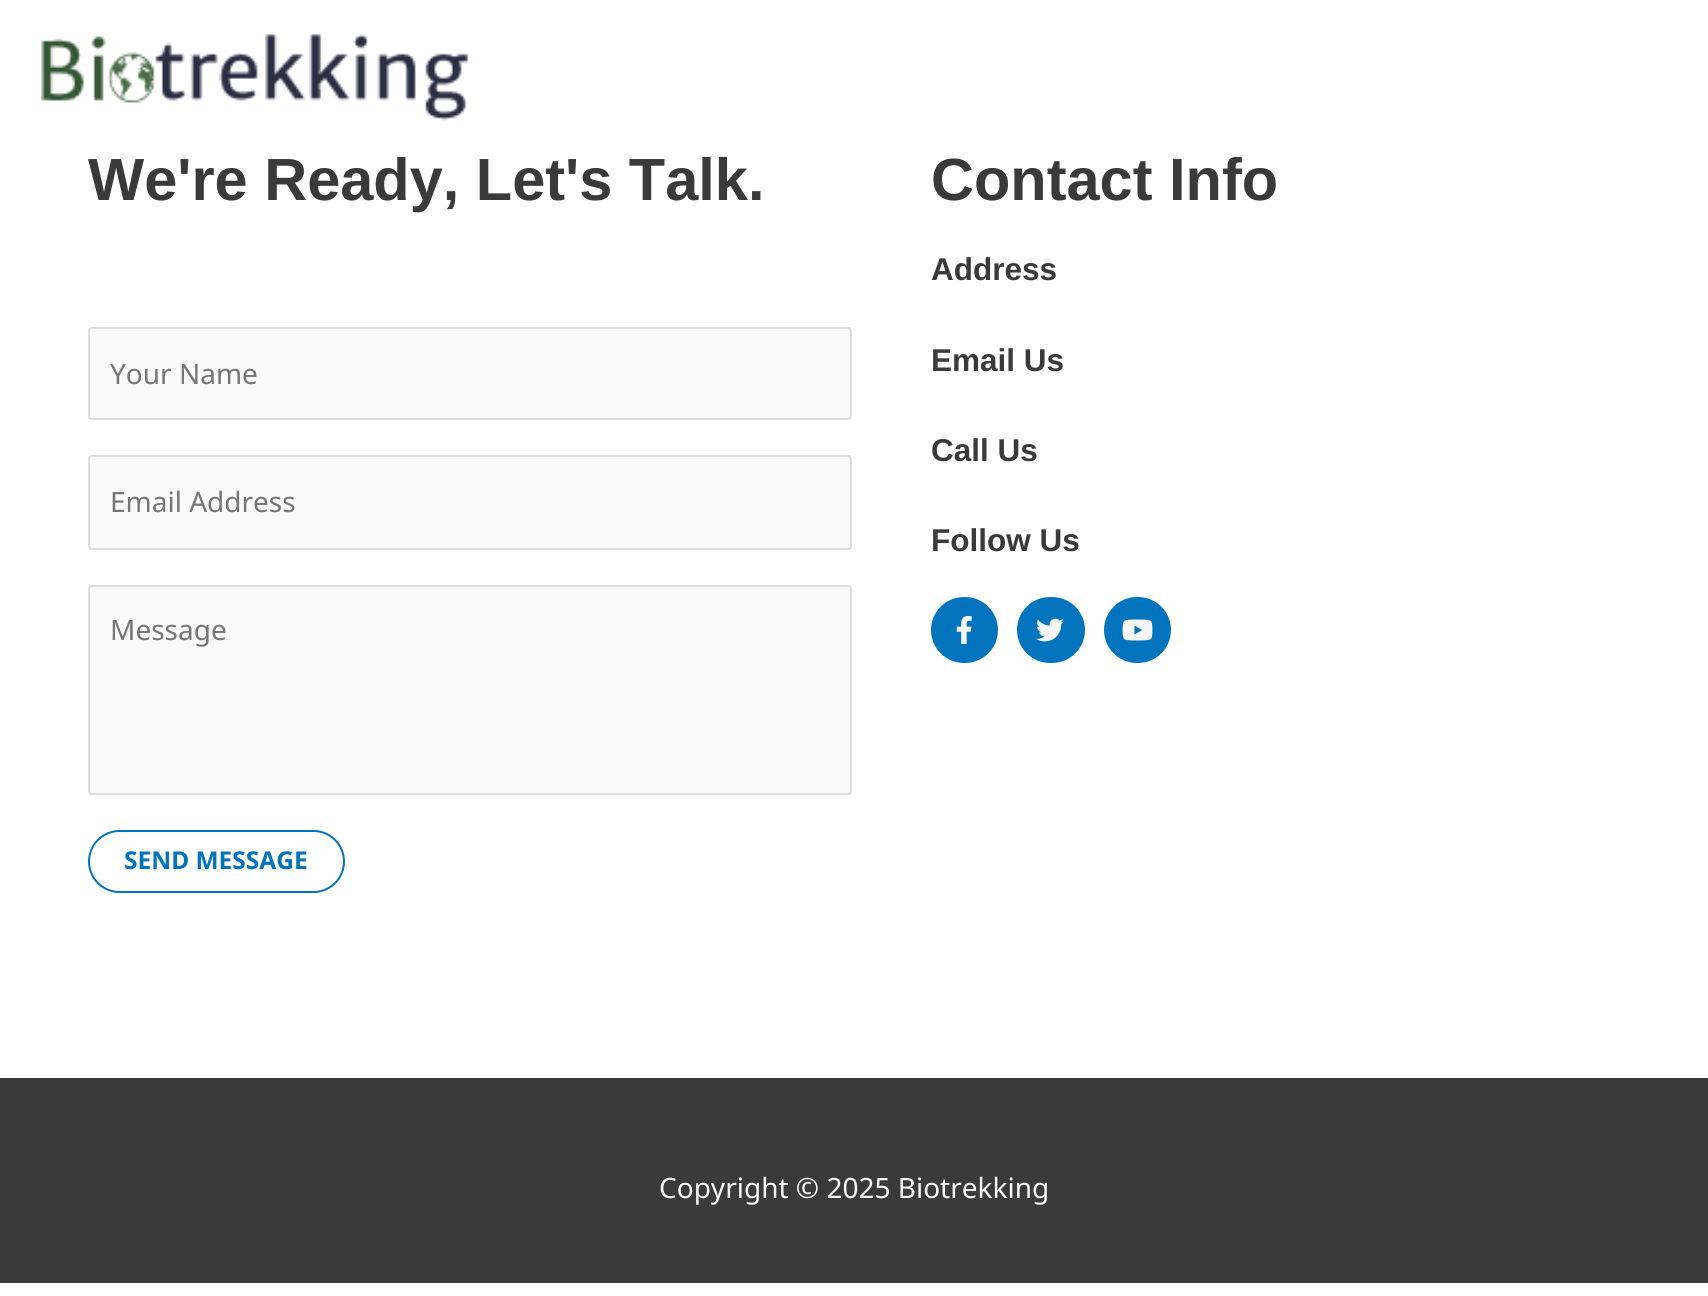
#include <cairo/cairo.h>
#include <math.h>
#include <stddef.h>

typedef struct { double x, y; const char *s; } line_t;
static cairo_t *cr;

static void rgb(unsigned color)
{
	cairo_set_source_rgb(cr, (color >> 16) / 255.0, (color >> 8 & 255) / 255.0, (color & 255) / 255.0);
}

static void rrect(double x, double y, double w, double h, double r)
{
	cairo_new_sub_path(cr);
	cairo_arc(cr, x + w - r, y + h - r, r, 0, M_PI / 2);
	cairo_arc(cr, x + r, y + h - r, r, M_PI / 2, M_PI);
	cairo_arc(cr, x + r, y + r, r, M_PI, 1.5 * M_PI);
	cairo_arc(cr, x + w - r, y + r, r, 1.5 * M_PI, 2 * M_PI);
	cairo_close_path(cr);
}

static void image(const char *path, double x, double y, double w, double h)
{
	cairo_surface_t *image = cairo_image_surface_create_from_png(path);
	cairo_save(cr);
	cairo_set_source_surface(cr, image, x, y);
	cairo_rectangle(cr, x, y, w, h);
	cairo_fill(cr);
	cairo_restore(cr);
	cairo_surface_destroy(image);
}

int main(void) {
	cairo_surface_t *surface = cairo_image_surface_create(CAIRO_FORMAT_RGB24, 1708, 1296);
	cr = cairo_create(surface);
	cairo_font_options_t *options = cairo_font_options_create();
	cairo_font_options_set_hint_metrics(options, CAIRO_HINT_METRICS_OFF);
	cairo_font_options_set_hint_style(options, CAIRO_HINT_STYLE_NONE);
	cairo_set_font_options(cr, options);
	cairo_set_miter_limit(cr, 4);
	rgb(0xffffff);
	cairo_paint(cr);
	image("img/1.png", 41, 34, 428, 87);
	rgb(0xfafafa);
	rrect(89, 328, 762, 91, 3);
	cairo_fill_preserve(cr);
	rgb(0xdddddd);
	cairo_stroke(cr);
	rgb(0xfafafa);
	rrect(89, 456, 762, 93, 3);
	cairo_fill_preserve(cr);
	rgb(0xdddddd);
	cairo_stroke(cr);
	rgb(0xfafafa);
	rrect(89, 586, 762, 208, 3);
	cairo_fill_preserve(cr);
	rgb(0xdddddd);
	cairo_stroke(cr);
	rrect(89, 831, 255, 61, 30.5);
	rgb(0x0274be);
	cairo_stroke(cr);
	rrect(931, 597, 67, 66, 33);
	cairo_fill(cr);
	image("img/2.png", 956, 616, 16, 28);
	rrect(1017, 597, 68, 66, 33);
	cairo_fill(cr);
	image("img/3.png", 1036, 618, 28, 24);
	rrect(1104, 597, 67, 66, 33);
	cairo_fill(cr);
	image("img/4.png", 1122, 619, 31, 22);
	rgb(0x3a3a3a);
	cairo_rectangle(cr, 0, 1078, 1708, 205);
	cairo_fill(cr);
	cairo_select_font_face(cr, "Liberation Sans", CAIRO_FONT_SLANT_NORMAL, CAIRO_FONT_WEIGHT_BOLD);
	cairo_set_font_size(cr, 59.5);
	cairo_move_to(cr, 88, 200);
	cairo_show_text(cr, "We're Ready, Let's Talk.");
	cairo_select_font_face(cr, "Noto Sans", CAIRO_FONT_SLANT_NORMAL, CAIRO_FONT_WEIGHT_NORMAL);
	cairo_set_font_size(cr, 28);
	rgb(0x757575);
	{
		static const line_t items[] = {
			{110, 384, "Your Name"},
			{110, 512, "Email Address"},
			{110, 640, "Message"},
		};
		for (size_t i = 0; i < sizeof items / sizeof *items; i++) {
			cairo_move_to(cr, items[i].x, items[i].y);
			cairo_show_text(cr, items[i].s);
		}
	}
	cairo_select_font_face(cr, "Noto Sans", CAIRO_FONT_SLANT_NORMAL, CAIRO_FONT_WEIGHT_BOLD);
	cairo_set_font_size(cr, 24.5);
	rgb(0x0274be);
	cairo_move_to(cr, 124, 869);
	cairo_show_text(cr, "SEND MESSAGE");
	cairo_select_font_face(cr, "Liberation Sans", CAIRO_FONT_SLANT_NORMAL, CAIRO_FONT_WEIGHT_BOLD);
	cairo_set_font_size(cr, 59.5);
	rgb(0x3a3a3a);
	cairo_move_to(cr, 931, 200);
	cairo_show_text(cr, "Contact Info");
	cairo_set_font_size(cr, 31.5);
	{
		static const line_t items[] = {
			{931, 280, "Address"},
			{931, 371, "Email Us"},
			{931, 461, "Call Us"},
			{931, 551, "Follow Us"},
		};
		for (size_t i = 0; i < sizeof items / sizeof *items; i++) {
			cairo_move_to(cr, items[i].x, items[i].y);
			cairo_show_text(cr, items[i].s);
		}
	}
	cairo_select_font_face(cr, "Noto Sans", CAIRO_FONT_SLANT_NORMAL, CAIRO_FONT_WEIGHT_NORMAL);
	cairo_set_font_size(cr, 28);
	rgb(0xf7f7f7);
	cairo_move_to(cr, 659, 1198);
	cairo_show_text(cr, "Copyright © 2025 Biotrekking");
	cairo_surface_write_to_png(surface, "page.png");
	cairo_font_options_destroy(options);
	cairo_destroy(cr);
	cairo_surface_destroy(surface);
	return 0;
}
